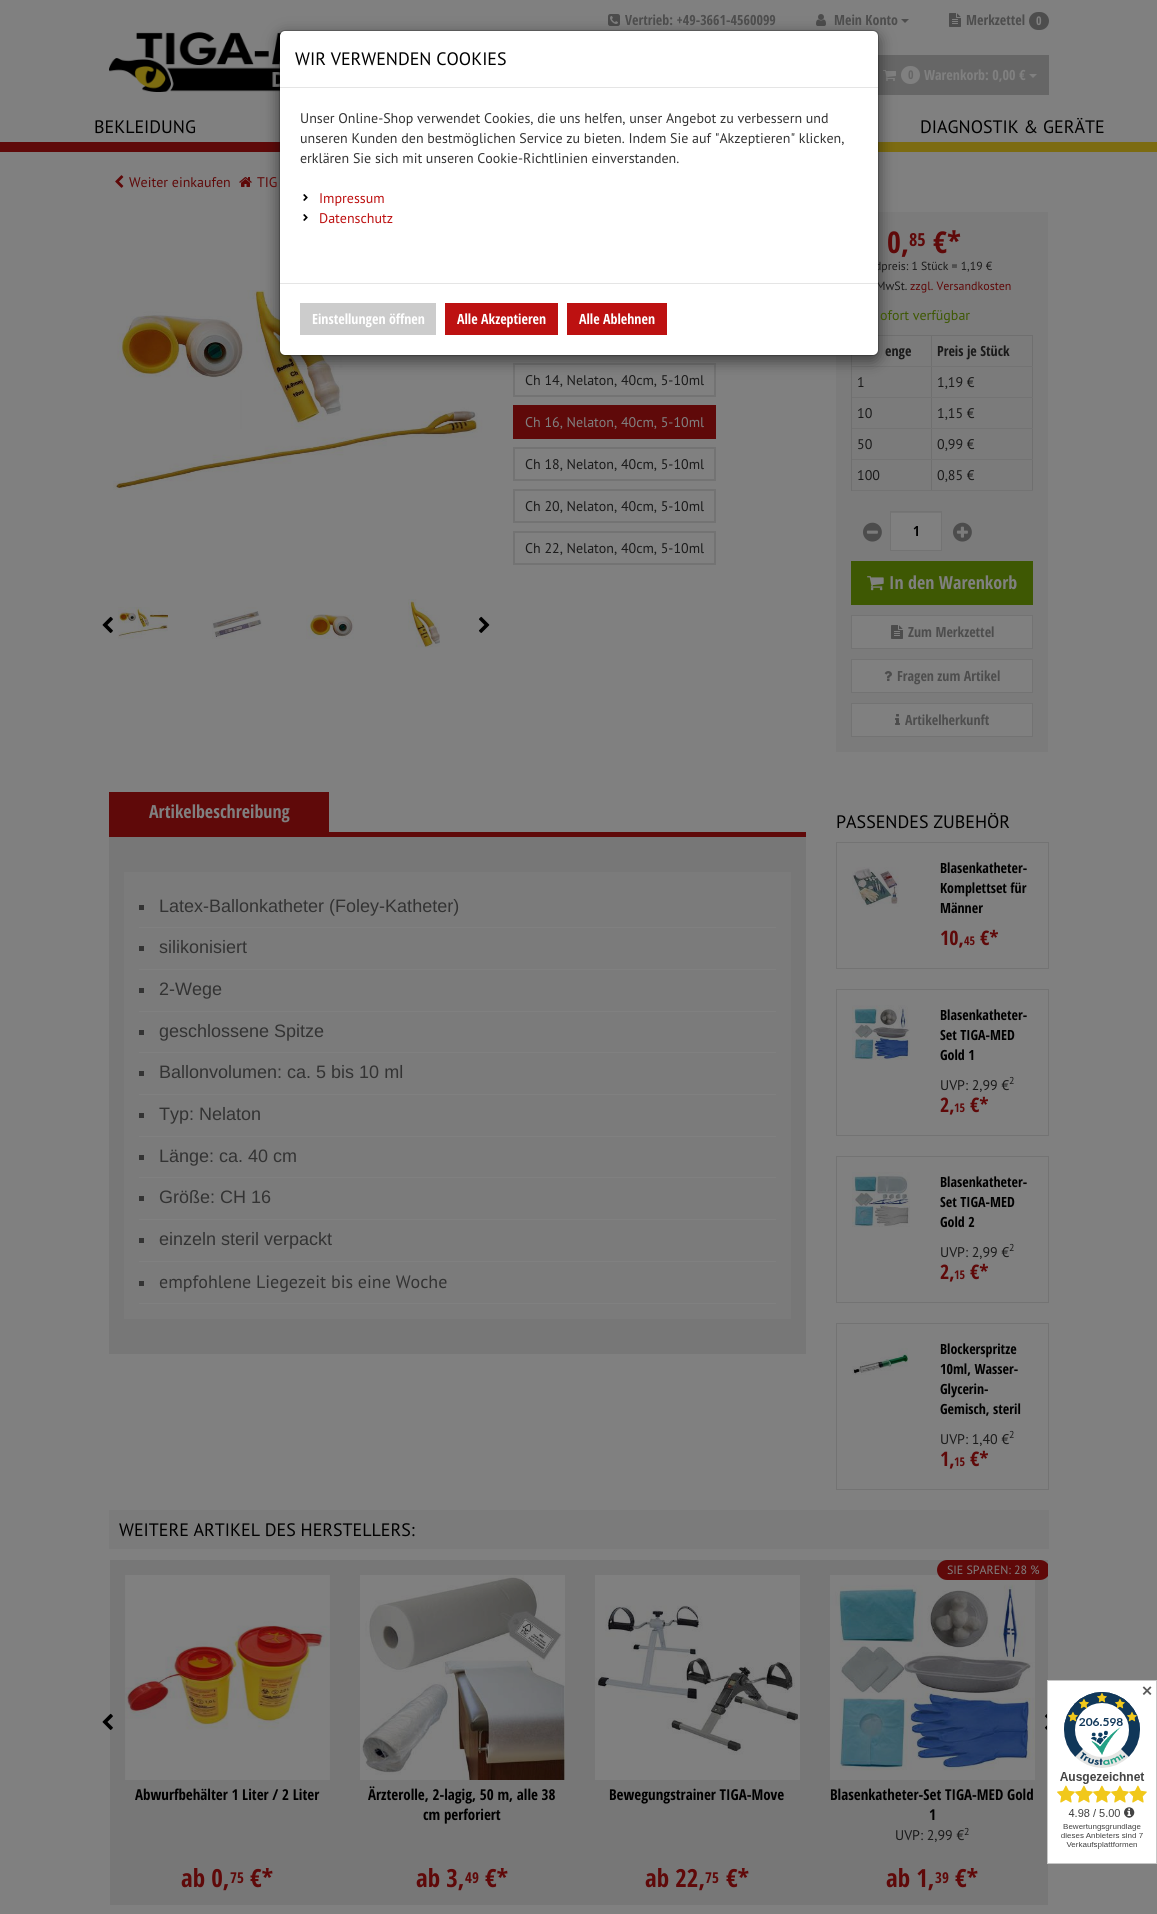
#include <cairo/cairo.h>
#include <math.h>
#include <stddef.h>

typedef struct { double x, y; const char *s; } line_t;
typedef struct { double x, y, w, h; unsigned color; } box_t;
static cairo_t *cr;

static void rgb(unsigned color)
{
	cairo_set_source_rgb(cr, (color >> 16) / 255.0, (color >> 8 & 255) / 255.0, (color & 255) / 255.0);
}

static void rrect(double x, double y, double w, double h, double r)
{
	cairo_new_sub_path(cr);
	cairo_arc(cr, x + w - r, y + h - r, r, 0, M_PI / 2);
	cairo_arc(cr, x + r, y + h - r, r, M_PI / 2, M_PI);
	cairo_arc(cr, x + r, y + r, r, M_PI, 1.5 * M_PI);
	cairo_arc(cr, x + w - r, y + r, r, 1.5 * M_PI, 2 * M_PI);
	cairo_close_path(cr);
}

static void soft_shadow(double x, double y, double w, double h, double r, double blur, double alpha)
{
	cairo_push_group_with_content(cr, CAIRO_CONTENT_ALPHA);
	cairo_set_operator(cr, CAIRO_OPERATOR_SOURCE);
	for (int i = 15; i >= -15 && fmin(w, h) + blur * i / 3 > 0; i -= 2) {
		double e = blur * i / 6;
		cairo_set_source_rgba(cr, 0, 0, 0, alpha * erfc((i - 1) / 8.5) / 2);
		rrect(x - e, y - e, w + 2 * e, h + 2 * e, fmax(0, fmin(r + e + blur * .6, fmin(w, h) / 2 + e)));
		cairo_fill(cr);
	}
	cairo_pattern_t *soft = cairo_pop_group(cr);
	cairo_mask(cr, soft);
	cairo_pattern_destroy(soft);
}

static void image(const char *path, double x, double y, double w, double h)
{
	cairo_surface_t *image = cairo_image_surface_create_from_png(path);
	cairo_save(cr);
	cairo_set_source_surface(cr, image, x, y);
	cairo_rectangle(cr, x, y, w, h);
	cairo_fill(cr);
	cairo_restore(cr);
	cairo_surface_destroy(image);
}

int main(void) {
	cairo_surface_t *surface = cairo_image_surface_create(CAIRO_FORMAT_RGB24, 1157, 1914);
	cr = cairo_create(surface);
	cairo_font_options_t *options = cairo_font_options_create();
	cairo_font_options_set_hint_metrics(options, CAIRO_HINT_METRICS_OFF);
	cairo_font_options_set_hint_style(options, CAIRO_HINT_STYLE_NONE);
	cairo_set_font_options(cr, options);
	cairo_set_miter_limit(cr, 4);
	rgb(0x808080);
	cairo_paint(cr);
	image("img/1.png", 608, 14, 12, 12);
	image("img/2.png", 816, 14, 10, 12);
	rgb(0x4d4d4d);
	cairo_new_path(cr);
	cairo_move_to(cr, 901, 19);
	cairo_line_to(cr, 909, 19);
	cairo_line_to(cr, 905, 23);
	cairo_close_path(cr);
	cairo_fill(cr);
	image("img/3.png", 949, 13, 12, 14);
	rrect(1029, 12, 20, 18, 9);
	cairo_fill(cr);
	image("img/4.png", 109, 32, 173, 60);
	rgb(0x666666);
	cairo_rectangle(cr, 878, 55, 171, 40);
	cairo_fill(cr);
	image("img/5.png", 883, 70, 13, 11);
	rgb(0x808080);
	rrect(901, 66, 19, 18, 9);
	cairo_fill(cr);
	cairo_new_path(cr);
	cairo_move_to(cr, 1029, 74);
	cairo_line_to(cr, 1037, 74);
	cairo_line_to(cr, 1033, 78);
	cairo_close_path(cr);
	cairo_fill(cr);
	rgb(0x5f0909);
	cairo_rectangle(cr, 0, 142, 280, 10);
	cairo_fill(cr);
	rgb(0x7c6b11);
	cairo_rectangle(cr, 878, 142, 279, 10);
	cairo_fill(cr);
	image("img/6.png", 115, 175, 9, 13);
	image("img/7.png", 239, 177, 13, 10);
	image("img/8.png", 113, 290, 370, 200);
	image("img/9.png", 446, 411, 9, 6);
	image("img/10.png", 102, 616, 11, 17);
	image("img/11.png", 118, 607, 50, 32);
	image("img/12.png", 212, 607, 50, 32);
	image("img/13.png", 306, 614, 48, 25);
	image("img/14.png", 408, 599, 32, 49);
	image("img/15.png", 478, 616, 12, 17);
	cairo_rectangle(cr, 514, 364, 201, 32);
	rgb(0x737373);
	cairo_stroke(cr);
	rgb(0x5f0909);
	cairo_rectangle(cr, 513, 405, 203, 34);
	cairo_fill(cr);
	cairo_rectangle(cr, 514, 448, 201, 32);
	rgb(0x737373);
	cairo_stroke(cr);
	cairo_rectangle(cr, 514, 490, 201, 32);
	cairo_stroke(cr);
	cairo_rectangle(cr, 514, 532, 201, 32);
	cairo_stroke(cr);
	{
		static const box_t items[] = {
			{836, 212, 212, 540, 0x7b7b7b},
			{878, 335, 155, 1, 0x6f6f6f},
			{1032, 335, 1, 156, 0x6f6f6f},
			{931, 490, 102, 1, 0x737373},
			{931, 459, 1, 32, 0x6f6f6f},
			{931, 459, 102, 1, 0x737373},
			{931, 428, 1, 32, 0x6f6f6f},
			{931, 428, 102, 1, 0x737373},
			{931, 397, 1, 32, 0x6f6f6f},
			{931, 397, 102, 1, 0x737373},
			{931, 366, 1, 32, 0x6f6f6f},
			{931, 366, 102, 1, 0x737373},
			{931, 335, 1, 32, 0x6f6f6f},
			{851, 490, 81, 1, 0x737373},
			{851, 459, 1, 32, 0x6f6f6f},
			{851, 459, 81, 1, 0x737373},
			{851, 428, 1, 32, 0x6f6f6f},
			{851, 428, 81, 1, 0x737373},
			{851, 397, 1, 32, 0x6f6f6f},
			{851, 397, 81, 1, 0x737373},
			{851, 366, 1, 32, 0x6f6f6f},
			{851, 366, 81, 1, 0x737373},
			{851, 355, 1, 12, 0x6f6f6f},
		};
		for (size_t i = 0; i < sizeof items / sizeof *items; i++) {
			rgb(items[i].color);
			cairo_rectangle(cr, items[i].x, items[i].y, items[i].w, items[i].h);
			cairo_fill(cr);
		}
	}
	image("img/16.png", 863, 522, 19, 20);
	rgb(0x808080);
	cairo_rectangle(cr, 891, 513, 50, 37);
	cairo_fill(cr);
	rgb(0x767676);
	cairo_rectangle(cr, 891, 512, 50, 1);
	cairo_fill(cr);
	cairo_rectangle(cr, 890.5, 511.5, 51, 39);
	rgb(0x737373);
	cairo_set_line_width(cr, 1);
	cairo_stroke(cr);
	image("img/17.png", 953, 522, 19, 20);
	rgb(0x3e5803);
	cairo_rectangle(cr, 851, 561, 182, 44);
	cairo_fill(cr);
	image("img/18.png", 867, 576, 17, 15);
	rgb(0x808080);
	cairo_rectangle(cr, 851.5, 615.5, 181, 33);
	cairo_fill_preserve(cr);
	rgb(0x737373);
	cairo_stroke(cr);
	image("img/3.png", 891, 625, 12, 14);
	rgb(0x808080);
	cairo_rectangle(cr, 851.5, 659.5, 181, 33);
	cairo_fill_preserve(cr);
	rgb(0x737373);
	cairo_stroke(cr);
	image("img/19.png", 884, 671, 8, 10);
	rgb(0x808080);
	cairo_rectangle(cr, 851.5, 703.5, 181, 33);
	cairo_fill_preserve(cr);
	rgb(0x737373);
	cairo_stroke(cr);
	image("img/20.png", 895, 714, 5, 11);
	{
		static const box_t items[] = {
			{109, 832, 697, 5, 0x5f0909},
			{109, 792, 220, 40, 0x5f0909},
			{109, 837, 697, 517, 0x777777},
			{124, 872, 667, 447, 0x7b7b7b},
			{139, 927, 637, 1, 0x808080},
			{139, 905, 5, 5, 0x333333},
			{139, 969, 637, 1, 0x808080},
			{139, 946, 5, 5, 0x333333},
			{139, 1011, 637, 1, 0x808080},
			{139, 988, 5, 5, 0x333333},
			{139, 1052, 637, 1, 0x808080},
			{139, 1030, 5, 5, 0x333333},
			{139, 1094, 637, 1, 0x808080},
			{139, 1071, 5, 5, 0x333333},
			{139, 1136, 637, 1, 0x808080},
			{139, 1113, 5, 5, 0x333333},
			{139, 1177, 637, 1, 0x808080},
			{139, 1155, 5, 5, 0x333333},
			{139, 1219, 637, 1, 0x808080},
			{139, 1196, 5, 5, 0x333333},
			{139, 1261, 637, 1, 0x808080},
			{139, 1238, 5, 5, 0x333333},
			{139, 1303, 637, 1, 0x808080},
			{139, 1281, 5, 5, 0x333333},
		};
		for (size_t i = 0; i < sizeof items / sizeof *items; i++) {
			rgb(items[i].color);
			cairo_rectangle(cr, items[i].x, items[i].y, items[i].w, items[i].h);
			cairo_fill(cr);
		}
	}
	cairo_rectangle(cr, 836.5, 842.5, 212, 126);
	rgb(0x737373);
	cairo_stroke(cr);
	image("img/21.png", 852, 867, 47, 40);
	cairo_rectangle(cr, 836.5, 989.5, 212, 146);
	cairo_stroke(cr);
	image("img/22.png", 852, 1005, 58, 55);
	cairo_rectangle(cr, 836.5, 1156.5, 212, 146);
	cairo_stroke(cr);
	image("img/23.png", 852, 1172, 58, 55);
	cairo_rectangle(cr, 836.5, 1323.5, 212, 166);
	cairo_stroke(cr);
	image("img/24.png", 852, 1348, 56, 27);
	rgb(0x7b7b7b);
	cairo_rectangle(cr, 109, 1510, 940, 39);
	cairo_fill(cr);
	rgb(0x777777);
	cairo_rectangle(cr, 110, 1560, 938, 345);
	cairo_fill(cr);
	image("img/25.png", 102, 1713, 11, 17);
	image("img/26.png", 125, 1575, 205, 205);
	image("img/27.png", 360, 1575, 205, 205);
	image("img/28.png", 595, 1575, 205, 205);
	image("img/29.png", 830, 1575, 205, 205);
	cairo_save(cr);
	cairo_rectangle(cr, 110, 1560, 938, 345);
	cairo_clip(cr);
	rgb(0x5f0909);
	rrect(937, 1560, 113, 20, 10);
	cairo_fill(cr);
	cairo_restore(cr);
	image("img/30.png", 1044, 1714, 3, 16);
	rgb(0x000000);
	soft_shadow(279, 35, 600, 326, 6, 7.5, 0.5);
	image("img/32.png", 1047, 1680, 110, 184);
	cairo_select_font_face(cr, "Open Sans Condensed", CAIRO_FONT_SLANT_NORMAL, CAIRO_FONT_WEIGHT_BOLD);
	cairo_set_font_size(cr, 14);
	rgb(0x4d4d4d);
	{
		static const line_t items[] = {
			{625, 25, "Vertrieb: +49-3661-4560099"},
			{834, 25, "Mein Konto"},
			{966, 25, "Merkzettel"},
		};
		for (size_t i = 0; i < sizeof items / sizeof *items; i++) {
			cairo_move_to(cr, items[i].x, items[i].y);
			cairo_show_text(cr, items[i].s);
		}
	}
	cairo_set_font_size(cr, 12);
	rgb(0x808080);
	cairo_move_to(cr, 1036, 25);
	cairo_show_text(cr, "0");
	rgb(0x666666);
	cairo_move_to(cr, 908, 79);
	cairo_show_text(cr, "0");
	cairo_set_font_size(cr, 14);
	rgb(0x808080);
	cairo_move_to(cr, 924, 80);
	cairo_show_text(cr, "Warenkorb: 0,00 €");
	cairo_select_font_face(cr, "PT Sans", CAIRO_FONT_SLANT_NORMAL, CAIRO_FONT_WEIGHT_NORMAL);
	cairo_set_font_size(cr, 18);
	rgb(0x000000);
	cairo_move_to(cr, 94, 133);
	cairo_show_text(cr, "BEKLEIDUNG");
	cairo_move_to(cr, 920, 133);
	cairo_show_text(cr, "DIAGNOSTIK & GERÄTE");
	cairo_set_font_size(cr, 14);
	rgb(0x5f0909);
	cairo_move_to(cr, 129, 187);
	cairo_show_text(cr, "Weiter einkaufen");
	cairo_move_to(cr, 257, 187);
	cairo_show_text(cr, "TIG");
	rgb(0x1a1a1a);
	cairo_move_to(cr, 525, 385);
	cairo_show_text(cr, "Ch 14, Nelaton, 40cm, 5-10ml");
	rgb(0x808080);
	cairo_move_to(cr, 525, 427);
	cairo_show_text(cr, "Ch 16, Nelaton, 40cm, 5-10ml");
	rgb(0x1a1a1a);
	{
		static const line_t items[] = {
			{525, 469, "Ch 18, Nelaton, 40cm, 5-10ml"},
			{525, 511, "Ch 20, Nelaton, 40cm, 5-10ml"},
			{525, 553, "Ch 22, Nelaton, 40cm, 5-10ml"},
		};
		for (size_t i = 0; i < sizeof items / sizeof *items; i++) {
			cairo_move_to(cr, items[i].x, items[i].y);
			cairo_show_text(cr, items[i].s);
		}
	}
	cairo_select_font_face(cr, "Open Sans Condensed", CAIRO_FONT_SLANT_NORMAL, CAIRO_FONT_WEIGHT_BOLD);
	cairo_set_font_size(cr, 30);
	rgb(0x5f0909);
	cairo_move_to(cr, 887, 253);
	cairo_show_text(cr, "0,");
	cairo_set_font_size(cr, 18);
	cairo_move_to(cr, 909, 246);
	cairo_show_text(cr, "85");
	cairo_set_font_size(cr, 30);
	cairo_move_to(cr, 933, 253);
	cairo_show_text(cr, "€*");
	cairo_select_font_face(cr, "PT Sans", CAIRO_FONT_SLANT_NORMAL, CAIRO_FONT_WEIGHT_NORMAL);
	cairo_set_font_size(cr, 11.75);
	rgb(0x1a1a1a);
	cairo_move_to(cr, 875, 270);
	cairo_show_text(cr, "dpreis: 1 Stück = 1,19 €");
	cairo_set_font_size(cr, 12);
	cairo_move_to(cr, 876, 290);
	cairo_show_text(cr, "MwSt.");
	rgb(0x5f0909);
	cairo_move_to(cr, 910, 290);
	cairo_show_text(cr, "zzgl. Versandkosten");
	cairo_set_font_size(cr, 14);
	rgb(0x3e5803);
	cairo_move_to(cr, 880, 320);
	cairo_show_text(cr, "ofort verfügbar");
	cairo_select_font_face(cr, "Open Sans Condensed", CAIRO_FONT_SLANT_NORMAL, CAIRO_FONT_WEIGHT_BOLD);
	rgb(0x1a1a1a);
	cairo_move_to(cr, 885, 356);
	cairo_show_text(cr, "enge");
	cairo_move_to(cr, 937, 356);
	cairo_show_text(cr, "Preis je Stück");
	cairo_select_font_face(cr, "PT Sans", CAIRO_FONT_SLANT_NORMAL, CAIRO_FONT_WEIGHT_NORMAL);
	{
		static const line_t items[] = {
			{857, 387, "1"},
			{937, 387, "1,19 €"},
			{857, 418, "10"},
			{937, 418, "1,15 €"},
			{857, 449, "50"},
			{937, 449, "0,99 €"},
			{857, 480, "100"},
			{937, 480, "0,85 €"},
		};
		for (size_t i = 0; i < sizeof items / sizeof *items; i++) {
			cairo_move_to(cr, items[i].x, items[i].y);
			cairo_show_text(cr, items[i].s);
		}
	}
	cairo_select_font_face(cr, "Open Sans Condensed", CAIRO_FONT_SLANT_NORMAL, CAIRO_FONT_WEIGHT_BOLD);
	rgb(0x000000);
	cairo_move_to(cr, 913, 536);
	cairo_show_text(cr, "1");
	cairo_set_font_size(cr, 18);
	rgb(0x808080);
	cairo_move_to(cr, 889, 589);
	cairo_show_text(cr, "In den Warenkorb");
	cairo_set_font_size(cr, 14);
	rgb(0x4d4d4d);
	{
		static const line_t items[] = {
			{908, 637, "Zum Merkzettel"},
			{897, 681, "Fragen zum Artikel"},
			{905, 725, "Artikelherkunft"},
		};
		for (size_t i = 0; i < sizeof items / sizeof *items; i++) {
			cairo_move_to(cr, items[i].x, items[i].y);
			cairo_show_text(cr, items[i].s);
		}
	}
	cairo_set_font_size(cr, 18);
	rgb(0x808080);
	cairo_move_to(cr, 149, 818);
	cairo_show_text(cr, "Artikelbeschreibung");
	cairo_select_font_face(cr, "Liberation Sans", CAIRO_FONT_SLANT_NORMAL, CAIRO_FONT_WEIGHT_NORMAL);
	rgb(0x333333);
	{
		static const line_t items[] = {
			{159, 912, "Latex-Ballonkatheter (Foley-Katheter)"},
			{159, 953, "silikonisiert"},
			{159, 995, "2-Wege"},
			{159, 1037, "geschlossene Spitze"},
			{159, 1078, "Ballonvolumen: ca. 5 bis 10 ml"},
			{159, 1120, "Typ: Nelaton"},
			{159, 1162, "Länge: ca. 40 cm"},
			{159, 1203, "Größe: CH 16"},
			{159, 1245, "einzeln steril verpackt"},
		};
		for (size_t i = 0; i < sizeof items / sizeof *items; i++) {
			cairo_move_to(cr, items[i].x, items[i].y);
			cairo_show_text(cr, items[i].s);
		}
	}
	cairo_select_font_face(cr, "PT Sans", CAIRO_FONT_SLANT_NORMAL, CAIRO_FONT_WEIGHT_NORMAL);
	cairo_move_to(cr, 159, 1288);
	cairo_show_text(cr, "empfohlene Liegezeit bis eine Woche");
	rgb(0x000000);
	cairo_move_to(cr, 836, 828);
	cairo_show_text(cr, "PASSENDES ZUBEHÖR");
	cairo_select_font_face(cr, "Open Sans Condensed", CAIRO_FONT_SLANT_NORMAL, CAIRO_FONT_WEIGHT_BOLD);
	cairo_set_font_size(cr, 14);
	{
		static const line_t items[] = {
			{940, 873, "Blasenkatheter-"},
			{940, 893, "Komplettset für"},
			{940, 913, "Männer"},
		};
		for (size_t i = 0; i < sizeof items / sizeof *items; i++) {
			cairo_move_to(cr, items[i].x, items[i].y);
			cairo_show_text(cr, items[i].s);
		}
	}
	cairo_set_font_size(cr, 20);
	rgb(0x5f0909);
	cairo_move_to(cr, 940, 945);
	cairo_show_text(cr, "10,");
	cairo_set_font_size(cr, 12);
	cairo_move_to(cr, 964, 945);
	cairo_show_text(cr, "45");
	cairo_set_font_size(cr, 20);
	cairo_move_to(cr, 980, 945);
	cairo_show_text(cr, "€*");
	cairo_set_font_size(cr, 14);
	rgb(0x000000);
	{
		static const line_t items[] = {
			{940, 1020, "Blasenkatheter-"},
			{940, 1040, "Set TIGA-MED"},
			{940, 1060, "Gold 1"},
		};
		for (size_t i = 0; i < sizeof items / sizeof *items; i++) {
			cairo_move_to(cr, items[i].x, items[i].y);
			cairo_show_text(cr, items[i].s);
		}
	}
	cairo_select_font_face(cr, "PT Sans", CAIRO_FONT_SLANT_NORMAL, CAIRO_FONT_WEIGHT_NORMAL);
	rgb(0x1a1a1a);
	cairo_move_to(cr, 940, 1090);
	cairo_show_text(cr, "UVP: 2,99 €");
	cairo_set_font_size(cr, 10);
	cairo_move_to(cr, 1009, 1084);
	cairo_show_text(cr, "2");
	cairo_select_font_face(cr, "Open Sans Condensed", CAIRO_FONT_SLANT_NORMAL, CAIRO_FONT_WEIGHT_BOLD);
	cairo_set_font_size(cr, 20);
	rgb(0x5f0909);
	cairo_move_to(cr, 940, 1112);
	cairo_show_text(cr, "2,");
	cairo_set_font_size(cr, 12);
	cairo_move_to(cr, 954, 1112);
	cairo_show_text(cr, "15");
	cairo_set_font_size(cr, 20);
	cairo_move_to(cr, 970, 1112);
	cairo_show_text(cr, "€*");
	cairo_set_font_size(cr, 14);
	rgb(0x000000);
	{
		static const line_t items[] = {
			{940, 1187, "Blasenkatheter-"},
			{940, 1207, "Set TIGA-MED"},
			{940, 1227, "Gold 2"},
		};
		for (size_t i = 0; i < sizeof items / sizeof *items; i++) {
			cairo_move_to(cr, items[i].x, items[i].y);
			cairo_show_text(cr, items[i].s);
		}
	}
	cairo_select_font_face(cr, "PT Sans", CAIRO_FONT_SLANT_NORMAL, CAIRO_FONT_WEIGHT_NORMAL);
	rgb(0x1a1a1a);
	cairo_move_to(cr, 940, 1257);
	cairo_show_text(cr, "UVP: 2,99 €");
	cairo_set_font_size(cr, 10);
	cairo_move_to(cr, 1009, 1251);
	cairo_show_text(cr, "2");
	cairo_select_font_face(cr, "Open Sans Condensed", CAIRO_FONT_SLANT_NORMAL, CAIRO_FONT_WEIGHT_BOLD);
	cairo_set_font_size(cr, 20);
	rgb(0x5f0909);
	cairo_move_to(cr, 940, 1279);
	cairo_show_text(cr, "2,");
	cairo_set_font_size(cr, 12);
	cairo_move_to(cr, 954, 1279);
	cairo_show_text(cr, "15");
	cairo_set_font_size(cr, 20);
	cairo_move_to(cr, 970, 1279);
	cairo_show_text(cr, "€*");
	cairo_set_font_size(cr, 14);
	rgb(0x000000);
	{
		static const line_t items[] = {
			{940, 1354, "Blockerspritze"},
			{940, 1374, "10ml, Wasser-"},
			{940, 1394, "Glycerin-"},
			{940, 1414, "Gemisch, steril"},
		};
		for (size_t i = 0; i < sizeof items / sizeof *items; i++) {
			cairo_move_to(cr, items[i].x, items[i].y);
			cairo_show_text(cr, items[i].s);
		}
	}
	cairo_select_font_face(cr, "PT Sans", CAIRO_FONT_SLANT_NORMAL, CAIRO_FONT_WEIGHT_NORMAL);
	rgb(0x1a1a1a);
	cairo_move_to(cr, 940, 1444);
	cairo_show_text(cr, "UVP: 1,40 €");
	cairo_set_font_size(cr, 10);
	cairo_move_to(cr, 1009, 1438);
	cairo_show_text(cr, "2");
	cairo_select_font_face(cr, "Open Sans Condensed", CAIRO_FONT_SLANT_NORMAL, CAIRO_FONT_WEIGHT_BOLD);
	cairo_set_font_size(cr, 20);
	rgb(0x5f0909);
	cairo_move_to(cr, 940, 1466);
	cairo_show_text(cr, "1,");
	cairo_set_font_size(cr, 12);
	cairo_move_to(cr, 954, 1466);
	cairo_show_text(cr, "15");
	cairo_set_font_size(cr, 20);
	cairo_move_to(cr, 970, 1466);
	cairo_show_text(cr, "€*");
	cairo_select_font_face(cr, "PT Sans", CAIRO_FONT_SLANT_NORMAL, CAIRO_FONT_WEIGHT_NORMAL);
	cairo_set_font_size(cr, 18);
	rgb(0x000000);
	cairo_move_to(cr, 119, 1536);
	cairo_show_text(cr, "WEITERE ARTIKEL DES HERSTELLERS:");
	cairo_select_font_face(cr, "Open Sans Condensed", CAIRO_FONT_SLANT_NORMAL, CAIRO_FONT_WEIGHT_BOLD);
	cairo_set_font_size(cr, 15);
	cairo_move_to(cr, 135, 1800);
	cairo_show_text(cr, "Abwurfbehälter 1 Liter / 2 Liter");
	cairo_set_font_size(cr, 25);
	rgb(0x5f0909);
	cairo_move_to(cr, 181, 1887);
	cairo_show_text(cr, "ab 0,");
	cairo_set_font_size(cr, 15);
	cairo_move_to(cr, 230, 1883);
	cairo_show_text(cr, "75");
	cairo_set_font_size(cr, 25);
	cairo_move_to(cr, 250, 1887);
	cairo_show_text(cr, "€*");
	cairo_set_font_size(cr, 15);
	rgb(0x000000);
	cairo_move_to(cr, 368, 1800);
	cairo_show_text(cr, "Ärzterolle, 2-lagig, 50 m, alle 38");
	cairo_move_to(cr, 423, 1820);
	cairo_show_text(cr, "cm perforiert");
	cairo_set_font_size(cr, 25);
	rgb(0x5f0909);
	cairo_move_to(cr, 416, 1887);
	cairo_show_text(cr, "ab 3,");
	cairo_set_font_size(cr, 15);
	cairo_move_to(cr, 465, 1883);
	cairo_show_text(cr, "49");
	cairo_set_font_size(cr, 25);
	cairo_move_to(cr, 485, 1887);
	cairo_show_text(cr, "€*");
	cairo_set_font_size(cr, 15);
	rgb(0x000000);
	cairo_move_to(cr, 609, 1800);
	cairo_show_text(cr, "Bewegungstrainer TIGA-Move");
	cairo_set_font_size(cr, 25);
	rgb(0x5f0909);
	cairo_move_to(cr, 645, 1887);
	cairo_show_text(cr, "ab 22,");
	cairo_set_font_size(cr, 15);
	cairo_move_to(cr, 705, 1883);
	cairo_show_text(cr, "75");
	cairo_set_font_size(cr, 25);
	cairo_move_to(cr, 726, 1887);
	cairo_show_text(cr, "€*");
	cairo_select_font_face(cr, "PT Sans", CAIRO_FONT_SLANT_NORMAL, CAIRO_FONT_WEIGHT_NORMAL);
	cairo_set_font_size(cr, 12);
	rgb(0x808080);
	cairo_move_to(cr, 947, 1574);
	cairo_show_text(cr, "SIE SPAREN: 28 %");
	cairo_select_font_face(cr, "Open Sans Condensed", CAIRO_FONT_SLANT_NORMAL, CAIRO_FONT_WEIGHT_BOLD);
	cairo_set_font_size(cr, 15);
	rgb(0x000000);
	cairo_move_to(cr, 830, 1800);
	cairo_show_text(cr, "Blasenkatheter-Set TIGA-MED Gold");
	cairo_move_to(cr, 929, 1820);
	cairo_show_text(cr, "1");
	cairo_select_font_face(cr, "PT Sans", CAIRO_FONT_SLANT_NORMAL, CAIRO_FONT_WEIGHT_NORMAL);
	cairo_set_font_size(cr, 14);
	rgb(0x1a1a1a);
	cairo_move_to(cr, 895, 1840);
	cairo_show_text(cr, "UVP: 2,99 €");
	cairo_set_font_size(cr, 10);
	cairo_move_to(cr, 964, 1835);
	cairo_show_text(cr, "2");
	cairo_select_font_face(cr, "Open Sans Condensed", CAIRO_FONT_SLANT_NORMAL, CAIRO_FONT_WEIGHT_BOLD);
	cairo_set_font_size(cr, 25);
	rgb(0x5f0909);
	cairo_move_to(cr, 886, 1887);
	cairo_show_text(cr, "ab 1,");
	cairo_set_font_size(cr, 15);
	cairo_move_to(cr, 935, 1883);
	cairo_show_text(cr, "39");
	cairo_set_font_size(cr, 25);
	cairo_move_to(cr, 955, 1887);
	cairo_show_text(cr, "€*");
	rgb(0xffffff);
	rrect(280, 31, 598, 324, 5);
	cairo_fill(cr);
	rrect(279.5, 30.5, 599, 325, 5.5);
	cairo_set_source_rgba(cr, 0, 0, 0, 0.2);
	cairo_stroke(cr);
	rgb(0xe5e5e5);
	cairo_rectangle(cr, 280, 87, 598, 1);
	cairo_fill(cr);
	cairo_select_font_face(cr, "PT Sans", CAIRO_FONT_SLANT_NORMAL, CAIRO_FONT_WEIGHT_NORMAL);
	cairo_set_font_size(cr, 18);
	rgb(0x000000);
	cairo_move_to(cr, 295, 65);
	cairo_show_text(cr, "WIR VERWENDEN COOKIES");
	cairo_set_font_size(cr, 14);
	rgb(0x333333);
	{
		static const line_t items[] = {
			{300, 123, "Unser Online-Shop verwendet Cookies, die uns helfen, unser Angebot zu verbessern und"},
			{300, 143, "unseren Kunden den bestmöglichen Service zu bieten. Indem Sie auf \"Akzeptieren\" klicken,"},
			{300, 163, "erklären Sie sich mit unseren Cookie-Richtlinien einverstanden."},
		};
		for (size_t i = 0; i < sizeof items / sizeof *items; i++) {
			cairo_move_to(cr, items[i].x, items[i].y);
			cairo_show_text(cr, items[i].s);
		}
	}
	image("img/31.png", 303, 194, 5, 7);
	rgb(0xbd1111);
	cairo_move_to(cr, 319, 203);
	cairo_show_text(cr, "Impressum");
	image("img/31.png", 303, 214, 5, 7);
	cairo_move_to(cr, 319, 223);
	cairo_show_text(cr, "Datenschutz");
	rgb(0xe5e5e5);
	cairo_rectangle(cr, 280, 283, 598, 1);
	cairo_fill(cr);
	rgb(0xcccccc);
	cairo_rectangle(cr, 300, 303, 136, 32);
	cairo_fill(cr);
	cairo_select_font_face(cr, "Open Sans Condensed", CAIRO_FONT_SLANT_NORMAL, CAIRO_FONT_WEIGHT_BOLD);
	rgb(0xffffff);
	cairo_move_to(cr, 312, 324);
	cairo_show_text(cr, "Einstellungen öffnen");
	rgb(0xbd1111);
	cairo_rectangle(cr, 445, 303, 113, 32);
	cairo_fill(cr);
	rgb(0xffffff);
	cairo_move_to(cr, 457, 324);
	cairo_show_text(cr, "Alle Akzeptieren");
	rgb(0xbd1111);
	cairo_rectangle(cr, 567, 303, 100, 32);
	cairo_fill(cr);
	rgb(0xffffff);
	cairo_move_to(cr, 579, 324);
	cairo_show_text(cr, "Alle Ablehnen");
	cairo_select_font_face(cr, "DejaVu Sans", CAIRO_FONT_SLANT_NORMAL, CAIRO_FONT_WEIGHT_BOLD);
	rgb(0x595959);
	cairo_move_to(cr, 1141, 1696);
	cairo_show_text(cr, "✕");
	cairo_surface_write_to_png(surface, "page.png");
	cairo_font_options_destroy(options);
	cairo_destroy(cr);
	cairo_surface_destroy(surface);
	return 0;
}
